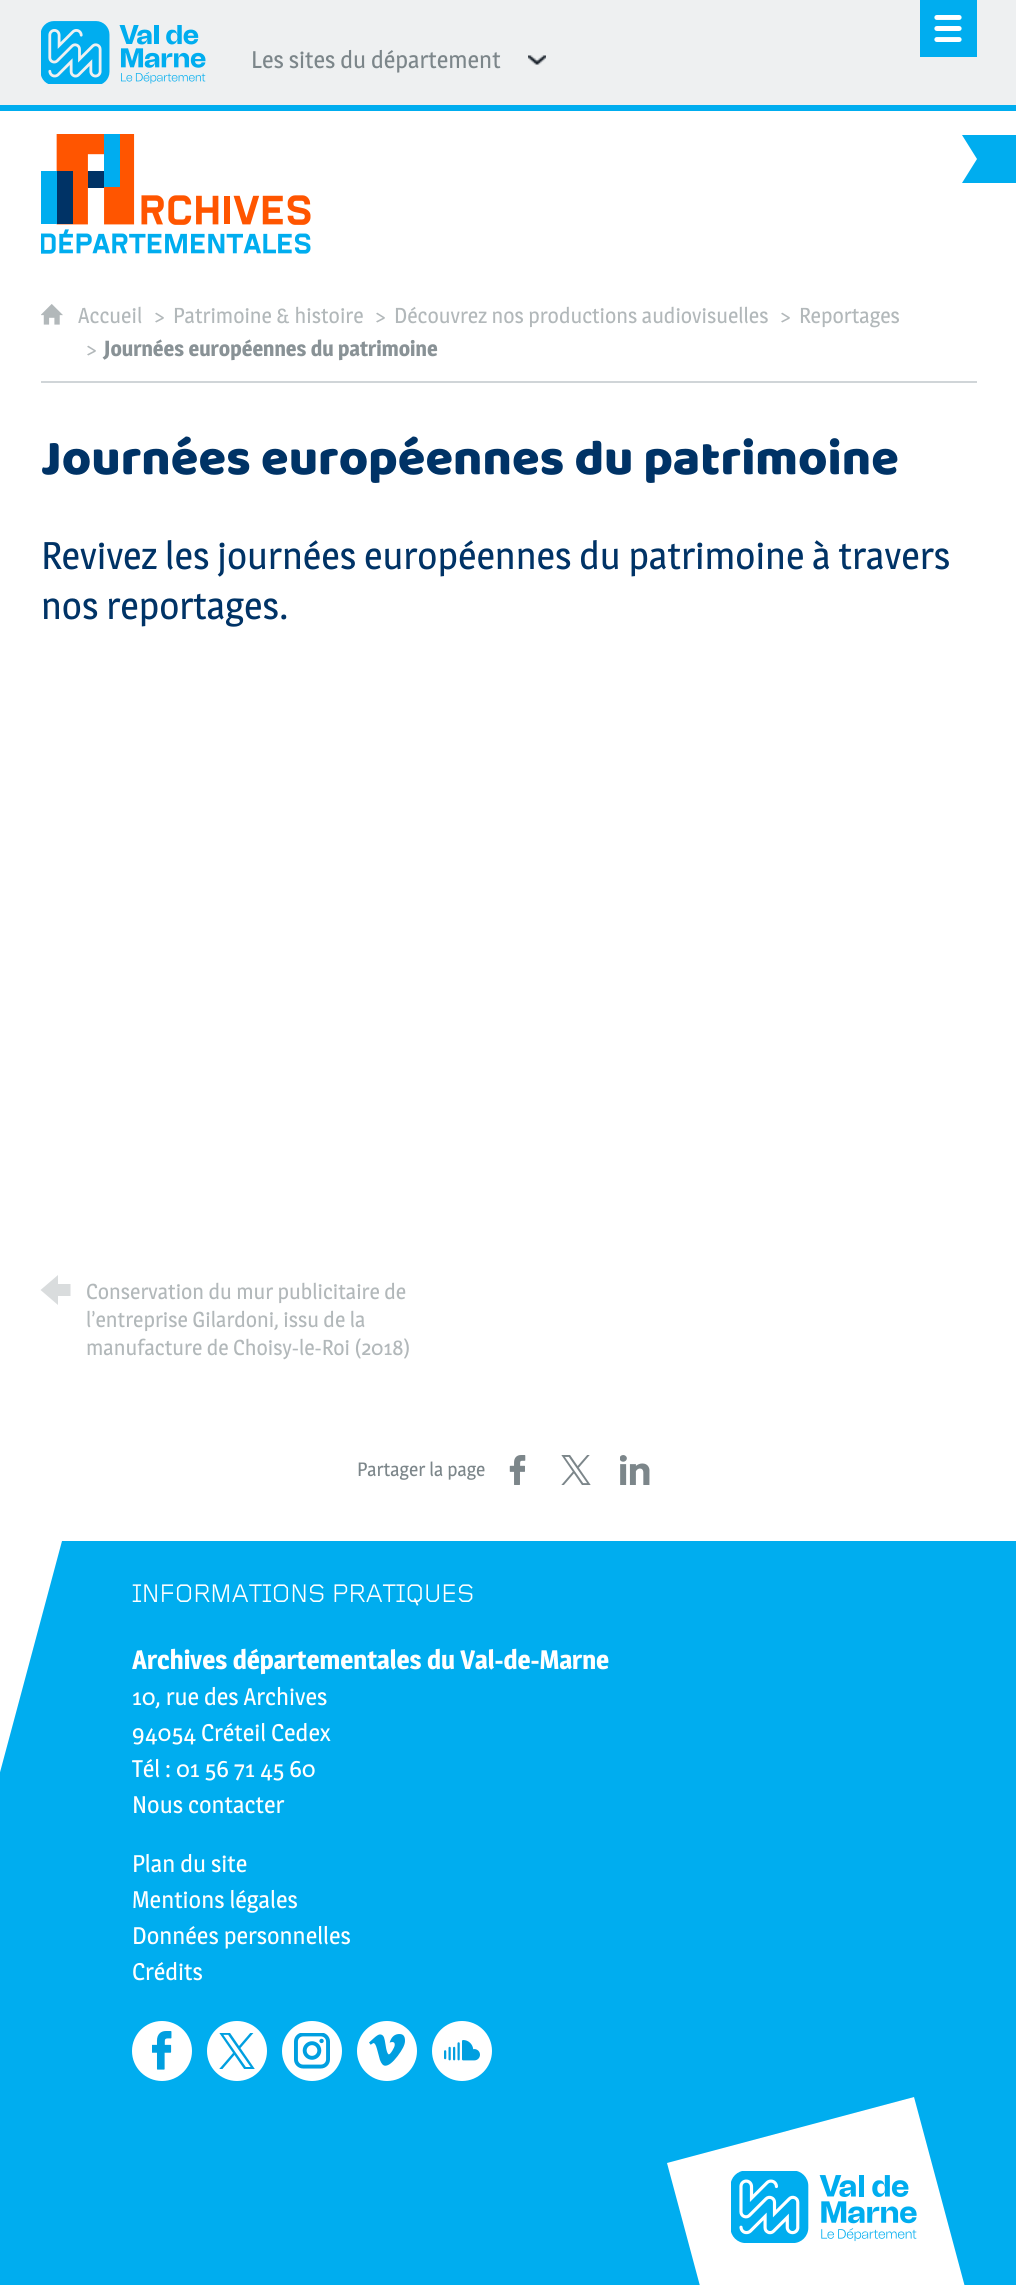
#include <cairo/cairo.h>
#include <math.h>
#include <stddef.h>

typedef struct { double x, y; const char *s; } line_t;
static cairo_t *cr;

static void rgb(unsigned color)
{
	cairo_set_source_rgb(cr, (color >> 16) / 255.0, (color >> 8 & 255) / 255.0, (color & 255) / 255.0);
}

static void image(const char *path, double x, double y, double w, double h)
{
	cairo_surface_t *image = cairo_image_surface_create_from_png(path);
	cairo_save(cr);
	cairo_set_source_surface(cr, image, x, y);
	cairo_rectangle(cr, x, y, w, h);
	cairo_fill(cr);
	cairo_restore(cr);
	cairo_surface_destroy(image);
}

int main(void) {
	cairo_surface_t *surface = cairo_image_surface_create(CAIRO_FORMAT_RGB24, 1016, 2285);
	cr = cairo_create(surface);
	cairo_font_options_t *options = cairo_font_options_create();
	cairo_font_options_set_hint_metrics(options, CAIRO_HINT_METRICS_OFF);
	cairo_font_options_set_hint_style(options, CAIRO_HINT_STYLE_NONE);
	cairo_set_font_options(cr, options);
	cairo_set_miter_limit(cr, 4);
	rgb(0xffffff);
	cairo_paint(cr);
	rgb(0xeef0f1);
	cairo_rectangle(cr, 0, 0, 1016, 105);
	cairo_fill(cr);
	rgb(0x00adef);
	cairo_rectangle(cr, 920, 0, 57, 57);
	cairo_fill(cr);
	image("img/1.png", 934, 15, 28, 27);
	cairo_rectangle(cr, 0, 105, 1016, 6);
	cairo_fill(cr);
	image("img/2.png", 41, 21, 165, 63);
	image("img/3.png", 528, 55, 18, 10);
	image("img/4.png", 41, 134, 270, 120);
	cairo_new_path(cr);
	cairo_move_to(cr, 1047, 183);
	cairo_line_to(cr, 962, 183);
	cairo_line_to(cr, 977, 159);
	cairo_line_to(cr, 962, 135);
	cairo_line_to(cr, 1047, 135);
	cairo_close_path(cr);
	cairo_fill(cr);
	rgb(0xd0d5d8);
	cairo_rectangle(cr, 41, 381, 936, 2);
	cairo_fill(cr);
	image("img/5.png", 41, 304, 22, 21);
	rgb(0xd9dcdd);
	cairo_new_path(cr);
	cairo_move_to(cr, 58, 1296);
	cairo_line_to(cr, 70.5, 1296);
	cairo_line_to(cr, 70.5, 1284);
	cairo_line_to(cr, 58, 1284);
	cairo_line_to(cr, 58, 1275);
	cairo_line_to(cr, 40.5, 1290);
	cairo_line_to(cr, 58, 1305);
	cairo_line_to(cr, 58, 1296);
	cairo_fill(cr);
	image("img/6.png", 509, 1455, 17, 30);
	image("img/7.png", 561, 1455, 30, 30);
	image("img/8.png", 620, 1455, 30, 30);
	rgb(0x00adef);
	cairo_rectangle(cr, 0, 1541, 1016, 744);
	cairo_fill(cr);
	rgb(0xffffff);
	cairo_new_path(cr);
	cairo_move_to(cr, -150, 1541);
	cairo_line_to(cr, -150, 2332);
	cairo_line_to(cr, 62, 1541);
	cairo_close_path(cr);
	cairo_fill(cr);
	cairo_arc(cr, 162, 2051, 30, 0, 2 * M_PI);
	cairo_fill(cr);
	image("img/9.png", 152, 2031, 20, 39);
	cairo_arc(cr, 237, 2051, 30, 0, 2 * M_PI);
	cairo_fill(cr);
	image("img/10.png", 219, 2033, 36, 36);
	cairo_arc(cr, 312, 2051, 30, 0, 2 * M_PI);
	cairo_fill(cr);
	image("img/11.png", 294, 2033, 36, 36);
	cairo_arc(cr, 387, 2051, 30, 0, 2 * M_PI);
	cairo_fill(cr);
	image("img/12.png", 369, 2034, 36, 32);
	cairo_arc(cr, 462, 2051, 30, 0, 2 * M_PI);
	cairo_fill(cr);
	image("img/13.png", 444, 2040, 36, 21);
	cairo_new_path(cr);
	cairo_move_to(cr, 667, 2163);
	cairo_line_to(cr, 914, 2097);
	cairo_line_to(cr, 980, 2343);
	cairo_line_to(cr, 733, 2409);
	cairo_close_path(cr);
	cairo_fill(cr);
	image("img/14.png", 731, 2171, 186, 72);
	cairo_select_font_face(cr, "Magra", CAIRO_FONT_SLANT_NORMAL, CAIRO_FONT_WEIGHT_NORMAL);
	cairo_set_font_size(cr, 24);
	rgb(0x7c868a);
	cairo_move_to(cr, 251, 68);
	cairo_show_text(cr, "Les sites du département");
	cairo_set_font_size(cr, 21.6);
	rgb(0xb2b8ba);
	{
		static const line_t items[] = {
			{78, 323, "Accueil"},
			{154, 323, ">"},
			{173, 323, "Patrimoine & histoire"},
			{375, 323, ">"},
			{394, 323, "Découvrez nos productions audiovisuelles"},
			{780, 323, ">"},
			{799, 323, "Reportages"},
			{86, 356, ">"},
		};
		for (size_t i = 0; i < sizeof items / sizeof *items; i++) {
			cairo_move_to(cr, items[i].x, items[i].y);
			cairo_show_text(cr, items[i].s);
		}
	}
	cairo_select_font_face(cr, "Magra", CAIRO_FONT_SLANT_NORMAL, CAIRO_FONT_WEIGHT_BOLD);
	rgb(0x899296);
	cairo_move_to(cr, 104, 356);
	cairo_show_text(cr, "Journées européennes du patrimoine");
	cairo_select_font_face(cr, "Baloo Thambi", CAIRO_FONT_SLANT_NORMAL, CAIRO_FONT_WEIGHT_NORMAL);
	cairo_set_font_size(cr, 50.4);
	rgb(0x003366);
	cairo_move_to(cr, 41, 474);
	cairo_show_text(cr, "Journées européennes du patrimoine");
	cairo_select_font_face(cr, "Magra", CAIRO_FONT_SLANT_NORMAL, CAIRO_FONT_WEIGHT_NORMAL);
	cairo_set_font_size(cr, 38.4);
	cairo_move_to(cr, 41, 569);
	cairo_show_text(cr, "Revivez les journées européennes du patrimoine à travers");
	cairo_move_to(cr, 41, 619);
	cairo_show_text(cr, "nos reportages.");
	cairo_set_font_size(cr, 21.6);
	rgb(0xb2b8ba);
	{
		static const line_t items[] = {
			{86, 1299, "Conservation du mur publicitaire de"},
			{86, 1327, "l’entreprise Gilardoni, issu de la"},
			{86, 1355, "manufacture de Choisy-le-Roi (2018)"},
		};
		for (size_t i = 0; i < sizeof items / sizeof *items; i++) {
			cairo_move_to(cr, items[i].x, items[i].y);
			cairo_show_text(cr, items[i].s);
		}
	}
	cairo_set_font_size(cr, 19.25);
	rgb(0x7c868a);
	cairo_move_to(cr, 357, 1476);
	cairo_show_text(cr, "Partager la page");
	cairo_select_font_face(cr, "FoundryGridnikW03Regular", CAIRO_FONT_SLANT_NORMAL, CAIRO_FONT_WEIGHT_NORMAL);
	cairo_set_font_size(cr, 26.4);
	rgb(0xffffff);
	cairo_move_to(cr, 132, 1602);
	cairo_show_text(cr, "INFORMATIONS PRATIQUES");
	cairo_select_font_face(cr, "Magra", CAIRO_FONT_SLANT_NORMAL, CAIRO_FONT_WEIGHT_BOLD);
	cairo_move_to(cr, 132, 1669);
	cairo_show_text(cr, "Archives départementales du Val-de-Marne");
	cairo_select_font_face(cr, "Magra", CAIRO_FONT_SLANT_NORMAL, CAIRO_FONT_WEIGHT_NORMAL);
	cairo_set_font_size(cr, 24);
	{
		static const line_t items[] = {
			{132, 1705, "10, rue des Archives"},
			{132, 1741, "94054 Créteil Cedex"},
			{132, 1777, "Tél : 01 56 71 45 60"},
			{132, 1813, "Nous contacter"},
			{132, 1872, "Plan du site"},
			{132, 1908, "Mentions légales"},
			{132, 1944, "Données personnelles"},
			{132, 1980, "Crédits"},
		};
		for (size_t i = 0; i < sizeof items / sizeof *items; i++) {
			cairo_move_to(cr, items[i].x, items[i].y);
			cairo_show_text(cr, items[i].s);
		}
	}
	cairo_surface_write_to_png(surface, "page.png");
	cairo_font_options_destroy(options);
	cairo_destroy(cr);
	cairo_surface_destroy(surface);
	return 0;
}
